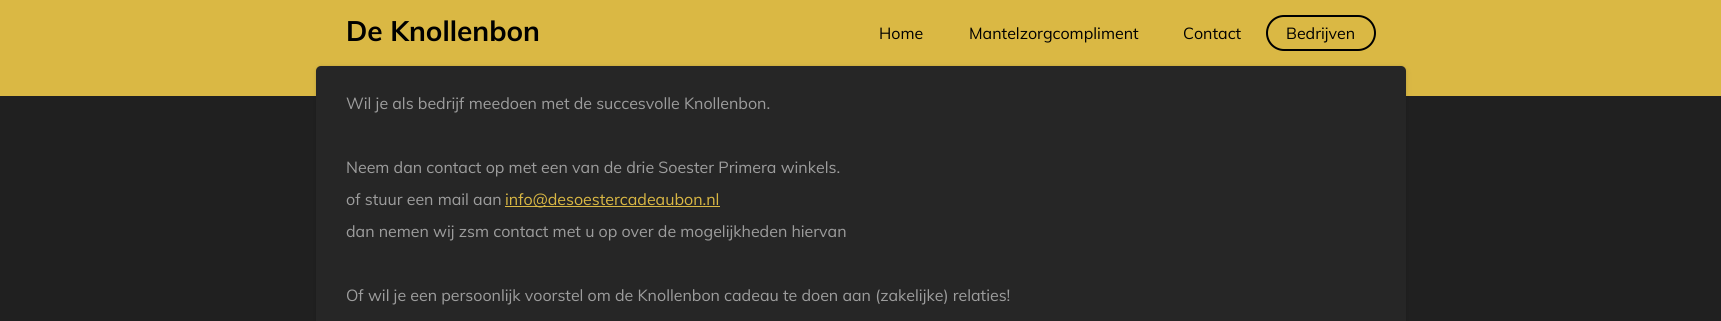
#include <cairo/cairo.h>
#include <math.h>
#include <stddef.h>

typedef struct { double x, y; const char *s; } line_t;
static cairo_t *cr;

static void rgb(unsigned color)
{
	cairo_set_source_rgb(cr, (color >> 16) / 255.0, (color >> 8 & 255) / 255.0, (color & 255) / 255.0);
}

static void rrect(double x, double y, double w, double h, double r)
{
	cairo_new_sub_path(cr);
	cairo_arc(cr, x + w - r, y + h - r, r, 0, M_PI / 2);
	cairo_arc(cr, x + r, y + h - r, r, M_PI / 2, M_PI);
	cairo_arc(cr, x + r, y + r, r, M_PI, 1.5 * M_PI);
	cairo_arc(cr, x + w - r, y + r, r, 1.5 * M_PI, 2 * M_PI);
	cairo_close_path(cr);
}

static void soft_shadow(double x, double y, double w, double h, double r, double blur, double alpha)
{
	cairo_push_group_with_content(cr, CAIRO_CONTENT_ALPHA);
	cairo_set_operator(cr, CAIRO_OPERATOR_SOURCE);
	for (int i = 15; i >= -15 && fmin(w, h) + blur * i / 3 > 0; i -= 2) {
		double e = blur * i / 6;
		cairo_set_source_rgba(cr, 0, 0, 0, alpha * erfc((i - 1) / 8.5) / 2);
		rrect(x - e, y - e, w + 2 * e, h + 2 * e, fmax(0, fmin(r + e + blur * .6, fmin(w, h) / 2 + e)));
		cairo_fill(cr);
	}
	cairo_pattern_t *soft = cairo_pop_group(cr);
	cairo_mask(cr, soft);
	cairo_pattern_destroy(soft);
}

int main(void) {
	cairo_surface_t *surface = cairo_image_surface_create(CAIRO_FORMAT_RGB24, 1721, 321);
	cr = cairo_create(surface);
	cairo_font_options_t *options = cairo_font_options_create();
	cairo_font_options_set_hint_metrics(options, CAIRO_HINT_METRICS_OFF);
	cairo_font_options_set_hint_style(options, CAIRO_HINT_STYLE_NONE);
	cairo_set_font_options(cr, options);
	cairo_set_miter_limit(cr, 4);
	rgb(0x202020);
	cairo_paint(cr);
	rgb(0xdab844);
	cairo_rectangle(cr, 0, 0, 1721, 96);
	cairo_fill(cr);
	rrect(1267, 16, 108, 34, 17);
	rgb(0x000000);
	cairo_stroke(cr);
	rgb(0x000000);
	soft_shadow(316, 66, 1090, 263, 5, 1, 0.1);
	soft_shadow(316, 68, 1090, 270, 5, 4, 0.07);
	rgb(0x262626);
	rrect(316, 66, 1090, 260, 5);
	cairo_fill(cr);
	rgb(0xdab844);
	cairo_rectangle(cr, 505, 206, 215, 1);
	cairo_fill(cr);
	cairo_select_font_face(cr, "Muli", CAIRO_FONT_SLANT_NORMAL, CAIRO_FONT_WEIGHT_BOLD);
	cairo_set_font_size(cr, 28);
	rgb(0x000000);
	cairo_move_to(cr, 346, 41);
	cairo_show_text(cr, "De Knollenbon");
	cairo_select_font_face(cr, "Muli", CAIRO_FONT_SLANT_NORMAL, CAIRO_FONT_WEIGHT_NORMAL);
	cairo_set_font_size(cr, 16);
	{
		static const line_t items[] = {
			{879, 39, "Home"},
			{969, 39, "Mantelzorgcompliment"},
			{1183, 39, "Contact"},
			{1286, 39, "Bedrijven"},
		};
		for (size_t i = 0; i < sizeof items / sizeof *items; i++) {
			cairo_move_to(cr, items[i].x, items[i].y);
			cairo_show_text(cr, items[i].s);
		}
	}
	rgb(0x9d9d9d);
	{
		static const line_t items[] = {
			{346, 109, "Wil je als bedrijf meedoen met de succesvolle Knollenbon."},
			{346, 173, "Neem dan contact op met een van de drie Soester Primera winkels."},
			{346, 205, "of stuur een mail aan"},
		};
		for (size_t i = 0; i < sizeof items / sizeof *items; i++) {
			cairo_move_to(cr, items[i].x, items[i].y);
			cairo_show_text(cr, items[i].s);
		}
	}
	rgb(0xdab844);
	cairo_move_to(cr, 505, 205);
	cairo_show_text(cr, "info@desoestercadeaubon.nl");
	rgb(0x9d9d9d);
	cairo_move_to(cr, 346, 237);
	cairo_show_text(cr, "dan nemen wij zsm contact met u op over de mogelijkheden hiervan");
	cairo_move_to(cr, 346, 301);
	cairo_show_text(cr, "Of wil je een persoonlijk voorstel om de Knollenbon cadeau te doen aan (zakelijke) relaties!");
	cairo_surface_write_to_png(surface, "page.png");
	cairo_font_options_destroy(options);
	cairo_destroy(cr);
	cairo_surface_destroy(surface);
	return 0;
}
